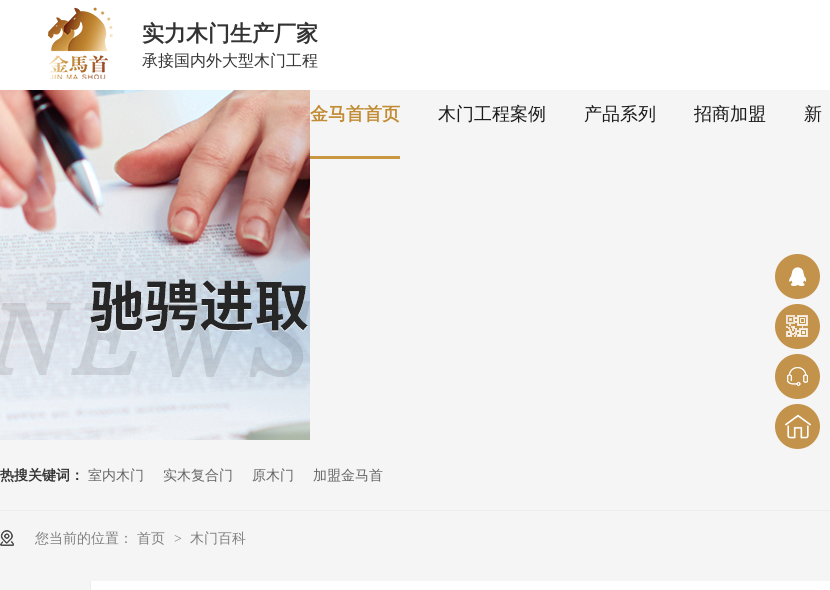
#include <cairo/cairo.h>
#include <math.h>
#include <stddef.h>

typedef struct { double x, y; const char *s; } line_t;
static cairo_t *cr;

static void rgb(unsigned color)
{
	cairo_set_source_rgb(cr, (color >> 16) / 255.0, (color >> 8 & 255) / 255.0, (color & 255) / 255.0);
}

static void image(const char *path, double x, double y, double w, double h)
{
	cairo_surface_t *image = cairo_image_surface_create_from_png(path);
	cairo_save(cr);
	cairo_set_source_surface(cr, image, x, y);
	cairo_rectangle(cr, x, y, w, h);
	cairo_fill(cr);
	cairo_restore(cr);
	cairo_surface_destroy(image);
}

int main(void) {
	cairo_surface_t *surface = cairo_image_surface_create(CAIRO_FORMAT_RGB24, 830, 590);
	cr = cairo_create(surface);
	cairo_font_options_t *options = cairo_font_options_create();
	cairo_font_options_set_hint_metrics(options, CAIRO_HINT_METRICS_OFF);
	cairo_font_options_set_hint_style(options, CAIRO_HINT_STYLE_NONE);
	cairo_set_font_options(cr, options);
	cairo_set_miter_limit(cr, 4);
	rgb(0xf5f5f5);
	cairo_paint(cr);
	rgb(0xffffff);
	cairo_rectangle(cr, 0, 0, 830, 90);
	cairo_fill(cr);
	image("img/1.png", 48, 7, 65, 72);
	rgb(0xca9843);
	cairo_rectangle(cr, 310, 156, 90, 3);
	cairo_fill(cr);
	image("img/2.png", 0, 90, 310, 350);
	rgb(0xc3934b);
	cairo_arc(cr, 797.5, 276.5, 22.5, 0, 2 * M_PI);
	cairo_fill(cr);
	image("img/3.png", 789, 267, 17, 19);
	cairo_arc(cr, 797.5, 326.5, 22.5, 0, 2 * M_PI);
	cairo_fill(cr);
	image("img/4.png", 786, 315, 22, 22);
	cairo_arc(cr, 797.5, 376.5, 22.5, 0, 2 * M_PI);
	cairo_fill(cr);
	image("img/5.png", 787, 367, 21, 19);
	cairo_arc(cr, 797.5, 426.5, 22.5, 0, 2 * M_PI);
	cairo_fill(cr);
	image("img/6.png", 785, 414, 26, 25);
	rgb(0xededed);
	cairo_rectangle(cr, 0, 510, 830, 1);
	cairo_fill(cr);
	image("img/7.png", 0, 530, 14, 16);
	rgb(0xffffff);
	cairo_rectangle(cr, 91, 581, 739, 9);
	cairo_fill(cr);
	rgb(0xebebeb);
	cairo_rectangle(cr, 90, 581, 1, 9);
	cairo_fill(cr);
	cairo_select_font_face(cr, "WenQuanYi Zen Hei", CAIRO_FONT_SLANT_NORMAL, CAIRO_FONT_WEIGHT_BOLD);
	cairo_set_font_size(cr, 22);
	rgb(0x333333);
	cairo_move_to(cr, 142, 41);
	cairo_show_text(cr, "实力木门生产厂家");
	cairo_select_font_face(cr, "WenQuanYi Zen Hei Medium", CAIRO_FONT_SLANT_NORMAL, CAIRO_FONT_WEIGHT_NORMAL);
	cairo_set_font_size(cr, 16);
	cairo_move_to(cr, 142, 66);
	cairo_show_text(cr, "承接国内外大型木门工程");
	cairo_select_font_face(cr, "WenQuanYi Zen Hei", CAIRO_FONT_SLANT_NORMAL, CAIRO_FONT_WEIGHT_BOLD);
	cairo_set_font_size(cr, 18);
	rgb(0xc28c35);
	cairo_move_to(cr, 310, 120);
	cairo_show_text(cr, "金马首首页");
	cairo_select_font_face(cr, "WenQuanYi Zen Hei Medium", CAIRO_FONT_SLANT_NORMAL, CAIRO_FONT_WEIGHT_NORMAL);
	rgb(0x1a1a1a);
	{
		static const line_t items[] = {
			{438, 120, "木门工程案例"},
			{584, 120, "产品系列"},
			{694, 120, "招商加盟"},
			{804, 120, "新"},
		};
		for (size_t i = 0; i < sizeof items / sizeof *items; i++) {
			cairo_move_to(cr, items[i].x, items[i].y);
			cairo_show_text(cr, items[i].s);
		}
	}
	cairo_select_font_face(cr, "WenQuanYi Zen Hei", CAIRO_FONT_SLANT_NORMAL, CAIRO_FONT_WEIGHT_BOLD);
	cairo_set_font_size(cr, 14);
	rgb(0x333333);
	cairo_move_to(cr, 0, 480);
	cairo_show_text(cr, "热搜关键词：");
	cairo_select_font_face(cr, "WenQuanYi Zen Hei Medium", CAIRO_FONT_SLANT_NORMAL, CAIRO_FONT_WEIGHT_NORMAL);
	rgb(0x666666);
	{
		static const line_t items[] = {
			{88, 480, "室内木门"},
			{163, 480, "实木复合门"},
			{252, 480, "原木门"},
			{313, 480, "加盟金马首"},
		};
		for (size_t i = 0; i < sizeof items / sizeof *items; i++) {
			cairo_move_to(cr, items[i].x, items[i].y);
			cairo_show_text(cr, items[i].s);
		}
	}
	rgb(0x808080);
	cairo_move_to(cr, 35, 543);
	cairo_show_text(cr, "您当前的位置：");
	cairo_move_to(cr, 137, 543);
	cairo_show_text(cr, "首页");
	cairo_select_font_face(cr, "Liberation Serif", CAIRO_FONT_SLANT_NORMAL, CAIRO_FONT_WEIGHT_NORMAL);
	cairo_move_to(cr, 174, 543);
	cairo_show_text(cr, ">");
	cairo_select_font_face(cr, "WenQuanYi Zen Hei Medium", CAIRO_FONT_SLANT_NORMAL, CAIRO_FONT_WEIGHT_NORMAL);
	cairo_move_to(cr, 190, 543);
	cairo_show_text(cr, "木门百科");
	cairo_surface_write_to_png(surface, "page.png");
	cairo_font_options_destroy(options);
	cairo_destroy(cr);
	cairo_surface_destroy(surface);
	return 0;
}
